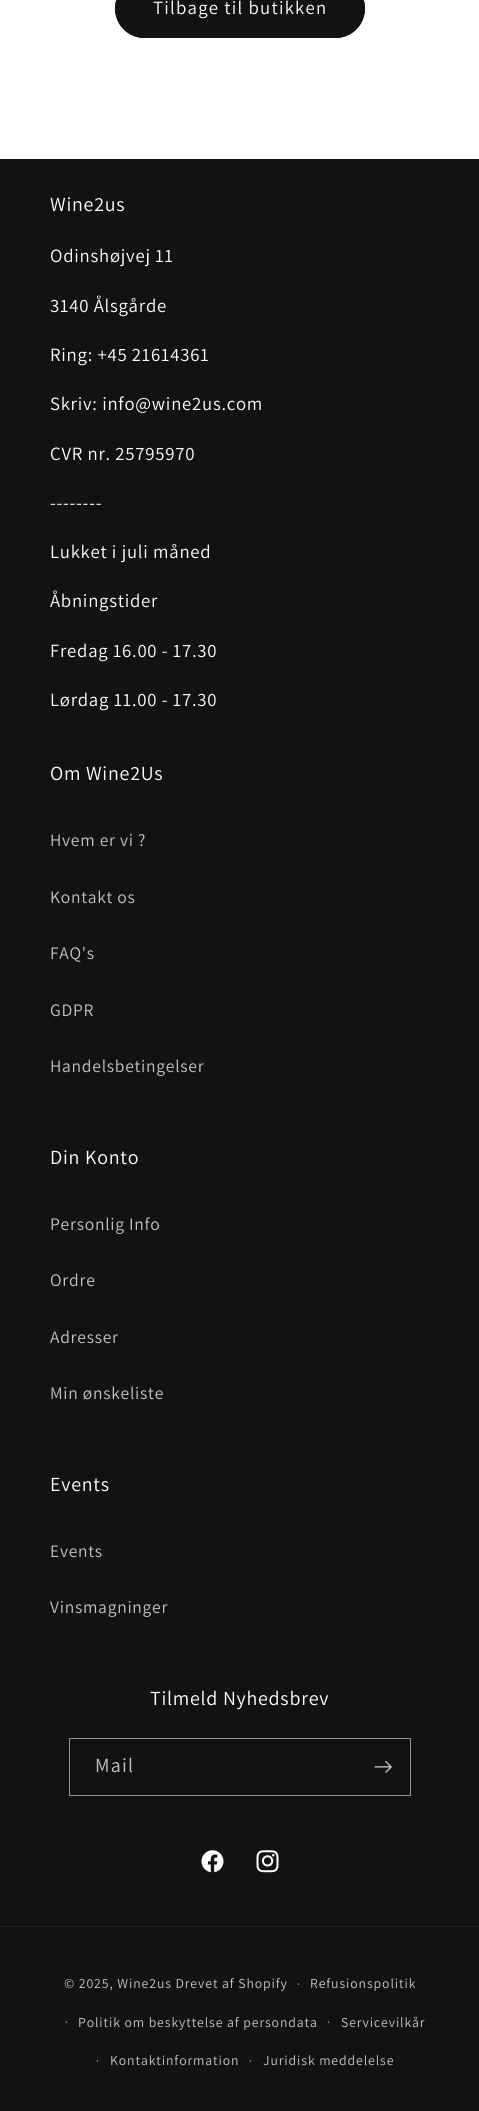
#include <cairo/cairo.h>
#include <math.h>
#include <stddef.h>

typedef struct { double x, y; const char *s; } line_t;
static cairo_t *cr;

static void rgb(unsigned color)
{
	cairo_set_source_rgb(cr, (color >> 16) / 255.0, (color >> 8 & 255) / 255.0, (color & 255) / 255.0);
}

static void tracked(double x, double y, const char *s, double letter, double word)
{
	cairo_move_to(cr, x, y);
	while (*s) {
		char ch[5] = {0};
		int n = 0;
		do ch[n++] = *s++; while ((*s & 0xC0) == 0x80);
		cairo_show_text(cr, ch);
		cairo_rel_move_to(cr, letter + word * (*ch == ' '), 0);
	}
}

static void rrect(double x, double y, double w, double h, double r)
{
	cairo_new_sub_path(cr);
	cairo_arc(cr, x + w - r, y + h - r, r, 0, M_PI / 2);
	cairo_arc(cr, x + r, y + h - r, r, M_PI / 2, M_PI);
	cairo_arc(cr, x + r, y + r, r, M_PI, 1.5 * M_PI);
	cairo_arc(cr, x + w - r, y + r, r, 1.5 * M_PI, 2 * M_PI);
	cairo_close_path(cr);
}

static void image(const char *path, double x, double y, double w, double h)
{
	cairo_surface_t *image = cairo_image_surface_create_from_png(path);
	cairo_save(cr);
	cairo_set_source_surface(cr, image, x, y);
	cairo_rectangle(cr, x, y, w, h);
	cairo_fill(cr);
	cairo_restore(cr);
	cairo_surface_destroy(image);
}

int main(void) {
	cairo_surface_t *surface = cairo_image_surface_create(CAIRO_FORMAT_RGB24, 479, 2111);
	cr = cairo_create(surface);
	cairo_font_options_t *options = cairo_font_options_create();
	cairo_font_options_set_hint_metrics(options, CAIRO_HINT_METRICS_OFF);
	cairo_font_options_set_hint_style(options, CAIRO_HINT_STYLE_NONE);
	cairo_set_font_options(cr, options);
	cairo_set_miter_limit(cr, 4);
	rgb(0xffffff);
	cairo_paint(cr);
	rgb(0x121212);
	rrect(115, -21, 250, 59, 29.5);
	cairo_fill(cr);
	rrect(115.5, -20.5, 249, 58, 29);
	cairo_set_line_width(cr, 1);
	cairo_stroke(cr);
	cairo_rectangle(cr, 0, 159, 479, 1952);
	cairo_fill(cr);
	cairo_rectangle(cr, 69.5, 1738.5, 341, 57);
	rgb(0x949494);
	cairo_stroke(cr);
	image("img/1.png", 374, 1760, 18, 13);
	image("img/2.png", 201, 1850, 23, 23);
	image("img/3.png", 256, 1850, 23, 23);
	rgb(0x252525);
	cairo_rectangle(cr, 0, 1926, 479, 1);
	cairo_fill(cr);
	cairo_select_font_face(cr, "Assistant", CAIRO_FONT_SLANT_NORMAL, CAIRO_FONT_WEIGHT_NORMAL);
	cairo_set_font_size(cr, 18.75);
	rgb(0xffffff);
	tracked(153, 14, "Tilbage til butikken", 1.25, 0);
	cairo_set_font_size(cr, 20);
	tracked(50, 211, "Wine2us", 0.75, 0);
	cairo_set_font_size(cr, 18.75);
	{
		static const line_t items[] = {
			{50, 262, "Odinshøjvej 11"},
			{50, 312, "3140 Ålsgårde"},
			{50, 361, "Ring: +45 21614361"},
			{50, 410, "Skriv: info@wine2us.com"},
			{50, 460, "CVR nr. 25795970"},
			{50, 509, "--------"},
			{50, 558, "Lukket i juli måned"},
			{50, 607, "Åbningstider"},
			{50, 657, "Fredag 16.00 - 17.30"},
			{50, 706, "Lørdag 11.00 - 17.30"},
		};
		for (size_t i = 0; i < sizeof items / sizeof *items; i++) {
			tracked(items[i].x, items[i].y, items[i].s, 0.75, 0);
		}
	}
	cairo_set_font_size(cr, 20);
	tracked(50, 780, "Om Wine2Us", 0.75, 0);
	cairo_set_font_size(cr, 17.5);
	rgb(0xc4c4c4);
	{
		static const line_t items[] = {
			{50, 846, "Hvem er vi ?"},
			{50, 903, "Kontakt os"},
			{50, 959, "FAQ's"},
			{50, 1016, "GDPR"},
			{50, 1072, "Handelsbetingelser"},
		};
		for (size_t i = 0; i < sizeof items / sizeof *items; i++) {
			tracked(items[i].x, items[i].y, items[i].s, 0.75, 0);
		}
	}
	cairo_set_font_size(cr, 20);
	rgb(0xffffff);
	tracked(50, 1164, "Din Konto", 0.75, 0);
	cairo_set_font_size(cr, 17.5);
	rgb(0xc4c4c4);
	{
		static const line_t items[] = {
			{50, 1230, "Personlig Info"},
			{50, 1286, "Ordre"},
			{50, 1343, "Adresser"},
			{50, 1399, "Min ønskeliste"},
		};
		for (size_t i = 0; i < sizeof items / sizeof *items; i++) {
			tracked(items[i].x, items[i].y, items[i].s, 0.75, 0);
		}
	}
	cairo_set_font_size(cr, 20);
	rgb(0xffffff);
	tracked(50, 1491, "Events", 0.75, 0);
	cairo_set_font_size(cr, 17.5);
	rgb(0xc4c4c4);
	tracked(50, 1557, "Events", 0.75, 0);
	tracked(50, 1613, "Vinsmagninger", 0.75, 0);
	cairo_set_font_size(cr, 20);
	rgb(0xffffff);
	tracked(150, 1705, "Tilmeld Nyhedsbrev", 0.75, 0);
	rgb(0xc4c4c4);
	tracked(95, 1772, "Mail", 1.25, 0);
	cairo_set_font_size(cr, 13.75);
	tracked(64, 1988, "© 2025, Wine2us Drevet af Shopify", 0.9, 0);
	cairo_set_font_size(cr, 12);
	tracked(297, 1988, "·", 0.9, 0);
	cairo_set_font_size(cr, 13.75);
	tracked(310, 1988, "Refusionspolitik", 0.9, 0);
	cairo_set_font_size(cr, 12);
	tracked(65, 2026, "·", 0.9, 0);
	cairo_set_font_size(cr, 13.75);
	tracked(78, 2027, "Politik om beskyttelse af persondata", 0.9, 0);
	cairo_set_font_size(cr, 12);
	tracked(327, 2026, "·", 0.9, 0);
	cairo_set_font_size(cr, 13.75);
	tracked(341, 2027, "Servicevilkår", 0.9, 0);
	cairo_set_font_size(cr, 12);
	tracked(96, 2065, "·", 0.9, 0);
	cairo_set_font_size(cr, 13.75);
	tracked(110, 2065, "Kontaktinformation", 0.9, 0);
	cairo_set_font_size(cr, 12);
	tracked(249, 2065, "·", 0.9, 0);
	cairo_set_font_size(cr, 13.75);
	tracked(263, 2065, "Juridisk meddelelse", 0.9, 0);
	cairo_surface_write_to_png(surface, "page.png");
	cairo_font_options_destroy(options);
	cairo_destroy(cr);
	cairo_surface_destroy(surface);
	return 0;
}
